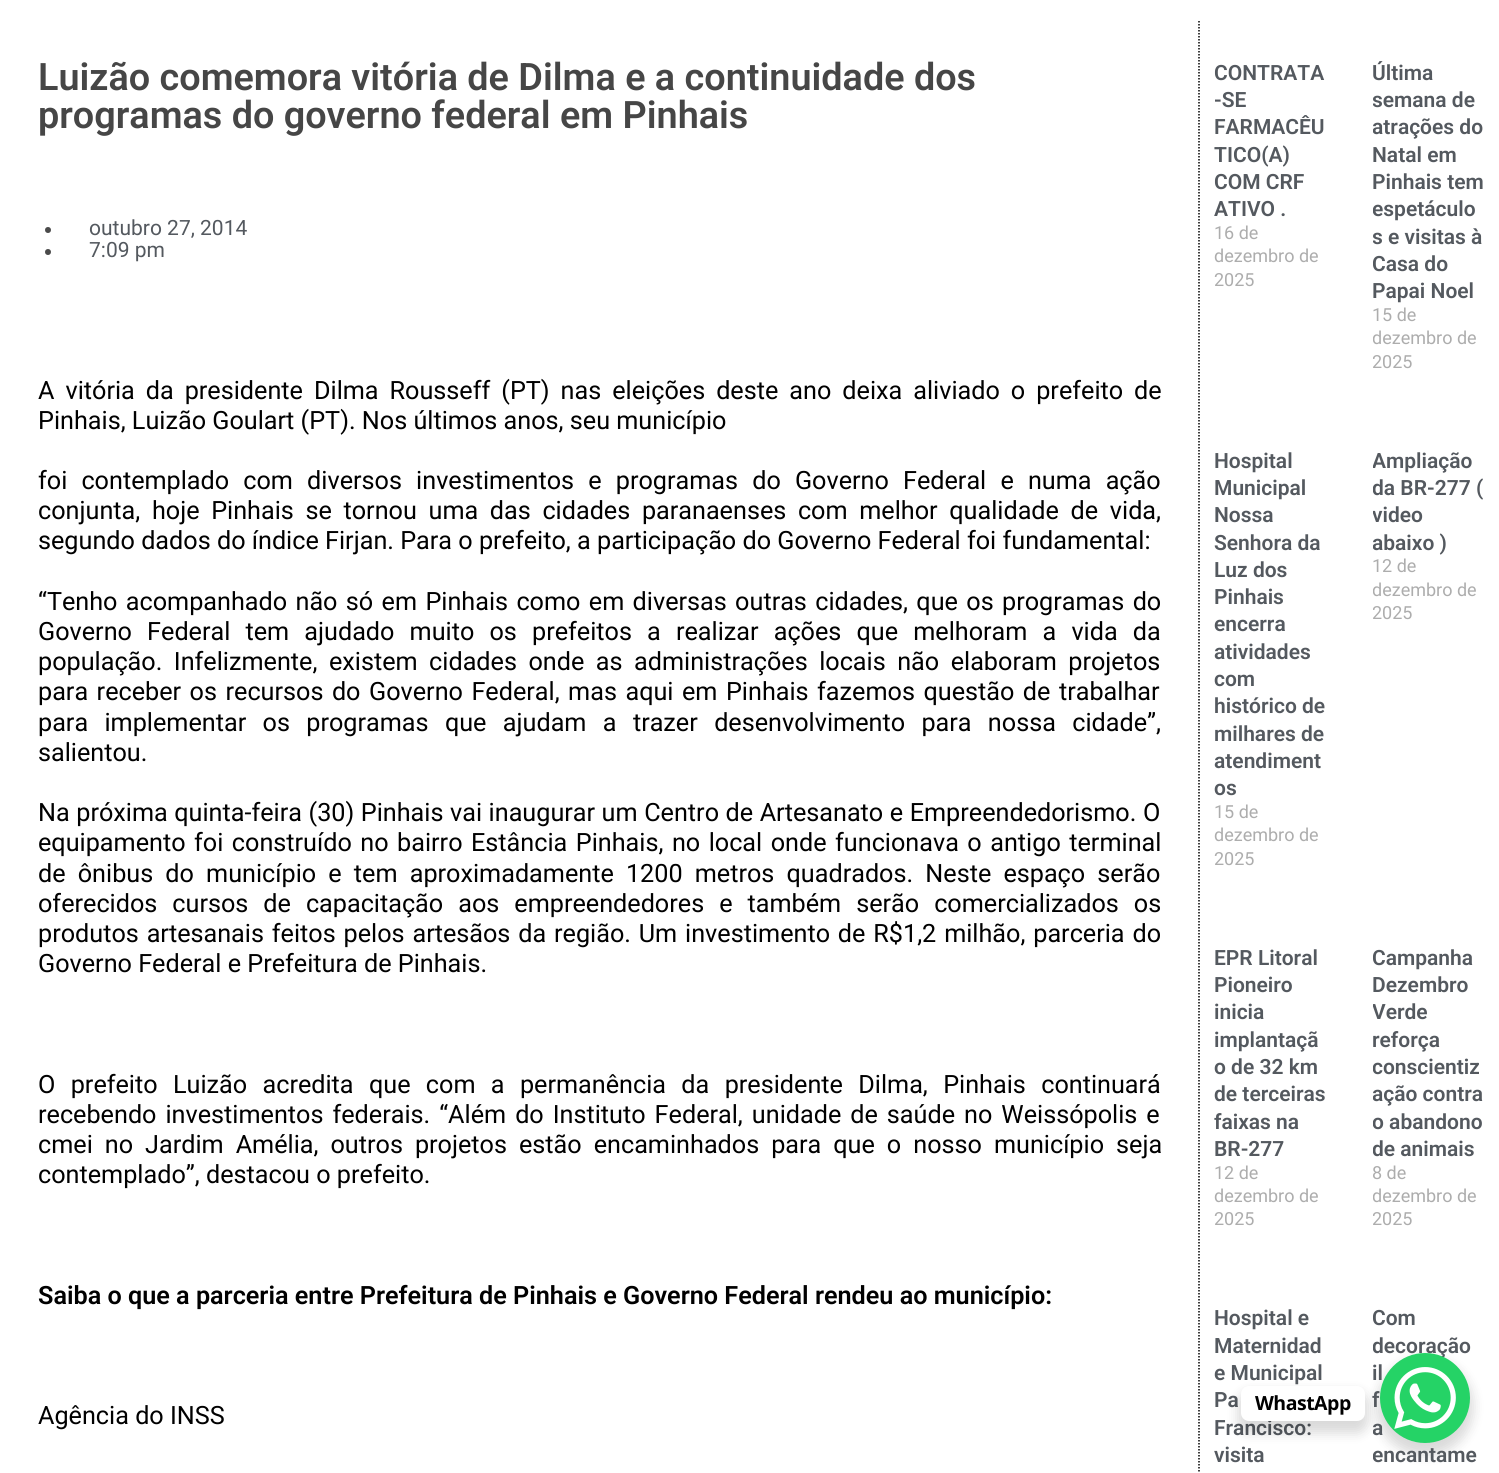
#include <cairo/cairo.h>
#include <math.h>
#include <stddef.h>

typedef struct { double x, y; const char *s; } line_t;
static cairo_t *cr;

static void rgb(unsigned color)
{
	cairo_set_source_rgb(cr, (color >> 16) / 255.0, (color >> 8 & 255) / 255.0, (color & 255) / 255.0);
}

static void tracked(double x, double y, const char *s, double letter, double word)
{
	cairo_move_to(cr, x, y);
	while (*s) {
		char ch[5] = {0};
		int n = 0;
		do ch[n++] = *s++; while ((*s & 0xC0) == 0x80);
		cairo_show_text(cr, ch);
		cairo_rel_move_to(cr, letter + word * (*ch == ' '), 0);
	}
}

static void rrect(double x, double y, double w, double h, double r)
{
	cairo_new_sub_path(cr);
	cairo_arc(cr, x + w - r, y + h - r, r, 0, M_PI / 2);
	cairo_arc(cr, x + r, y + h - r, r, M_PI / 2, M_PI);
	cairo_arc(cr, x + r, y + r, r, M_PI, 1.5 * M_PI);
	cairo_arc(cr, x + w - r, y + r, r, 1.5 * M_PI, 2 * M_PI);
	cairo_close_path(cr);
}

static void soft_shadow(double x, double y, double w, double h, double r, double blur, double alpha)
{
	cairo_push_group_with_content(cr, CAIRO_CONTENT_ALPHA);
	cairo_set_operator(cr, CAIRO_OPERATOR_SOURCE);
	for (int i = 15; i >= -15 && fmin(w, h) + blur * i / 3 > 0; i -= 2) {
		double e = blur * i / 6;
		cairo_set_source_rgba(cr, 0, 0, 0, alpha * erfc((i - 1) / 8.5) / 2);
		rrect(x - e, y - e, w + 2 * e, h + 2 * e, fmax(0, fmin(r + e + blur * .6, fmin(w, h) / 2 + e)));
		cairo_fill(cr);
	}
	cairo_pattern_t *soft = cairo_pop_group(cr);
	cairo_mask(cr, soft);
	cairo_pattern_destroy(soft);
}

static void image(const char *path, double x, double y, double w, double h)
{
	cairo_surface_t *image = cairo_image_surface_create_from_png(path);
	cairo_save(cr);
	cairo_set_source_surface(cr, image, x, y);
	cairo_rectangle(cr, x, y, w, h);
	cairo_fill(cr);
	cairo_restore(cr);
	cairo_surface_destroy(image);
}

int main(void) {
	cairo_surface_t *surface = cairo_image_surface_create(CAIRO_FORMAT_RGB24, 1499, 1473);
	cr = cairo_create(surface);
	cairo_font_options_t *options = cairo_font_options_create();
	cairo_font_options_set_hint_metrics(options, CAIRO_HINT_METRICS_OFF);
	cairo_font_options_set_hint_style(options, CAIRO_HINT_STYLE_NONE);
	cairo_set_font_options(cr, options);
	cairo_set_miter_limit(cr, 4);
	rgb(0xffffff);
	cairo_paint(cr);
	cairo_new_path(cr);
	cairo_move_to(cr, 1199, 21);
	cairo_line_to(cr, 1199, 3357);
	rgb(0x000000);
	cairo_set_line_width(cr, 1.5);
	cairo_set_dash(cr, (double[]){1.5, 1.5}, 2, 0);
	cairo_stroke(cr);
	rgb(0x4a4a4a);
	cairo_arc(cr, 48, 230, 3, 0, 2 * M_PI);
	cairo_fill(cr);
	cairo_arc(cr, 48, 252, 3, 0, 2 * M_PI);
	cairo_fill(cr);
	rgb(0x000000);
	soft_shadow(1377, 1359, 96, 96, 48, 6, 0.15);
	cairo_select_font_face(cr, "Roboto SemiBold", CAIRO_FONT_SLANT_NORMAL, CAIRO_FONT_WEIGHT_NORMAL);
	cairo_set_font_size(cr, 37.8);
	rgb(0x464646);
	cairo_move_to(cr, 38, 90);
	cairo_show_text(cr, "Luizão comemora vitória de Dilma e a continuidade dos");
	cairo_move_to(cr, 38, 128);
	cairo_show_text(cr, "programas do governo federal em Pinhais");
	cairo_select_font_face(cr, "Roboto", CAIRO_FONT_SLANT_NORMAL, CAIRO_FONT_WEIGHT_NORMAL);
	cairo_set_font_size(cr, 21);
	rgb(0x54595f);
	cairo_move_to(cr, 89, 235);
	cairo_show_text(cr, "outubro 27, 2014");
	cairo_move_to(cr, 89, 257);
	cairo_show_text(cr, "7:09 pm");
	cairo_set_font_size(cr, 25.2);
	rgb(0x000000);
	tracked(38, 399, "A vitória da presidente Dilma Rousseff (PT) nas eleições deste ano deixa aliviado o prefeito de", 0, 4.75);
	cairo_move_to(cr, 38, 429);
	cairo_show_text(cr, "Pinhais, Luizão Goulart (PT). Nos últimos anos, seu município");
	tracked(38, 489, "foi contemplado com diversos investimentos e programas do Governo Federal e numa ação", 0, 7.9);
	tracked(38, 519, "conjunta, hoje Pinhais se tornou uma das cidades paranaenses com melhor qualidade de vida,", 0, 5.4);
	cairo_move_to(cr, 38, 549);
	cairo_show_text(cr, "segundo dados do índice Firjan. Para o prefeito, a participação do Governo Federal foi fundamental:");
	tracked(38, 610, "“Tenho acompanhado não só em Pinhais como em diversas outras cidades, que os programas do", 0, 2.1);
	tracked(38, 640, "Governo Federal tem ajudado muito os prefeitos a realizar ações que melhoram a vida da", 0, 8.9);
	tracked(38, 670, "população. Infelizmente, existem cidades onde as administrações locais não elaboram projetos", 0, 5.25);
	tracked(38, 700, "para receber os recursos do Governo Federal, mas aqui em Pinhais fazemos questão de trabalhar", 0, 2.25);
	tracked(38, 731, "para implementar os programas que ajudam a trazer desenvolvimento para nossa cidade”,", 0, 10.1);
	cairo_move_to(cr, 38, 761);
	cairo_show_text(cr, "salientou.");
	tracked(38, 821, "Na próxima quinta-feira (30) Pinhais vai inaugurar um Centro de Artesanato e Empreendedorismo. O", 0, 0.3);
	tracked(38, 851, "equipamento foi construído no bairro Estância Pinhais, no local onde funcionava o antigo terminal", 0, 2.25);
	tracked(38, 882, "de ônibus do município e tem aproximadamente 1200 metros quadrados. Neste espaço serão", 0, 5.9);
	tracked(38, 912, "oferecidos cursos de capacitação aos empreendedores e também serão comercializados os", 0, 8.75);
	tracked(38, 942, "produtos artesanais feitos pelos artesãos da região. Um investimento de R$1,2 milhão, parceria do", 0, 1.6);
	cairo_move_to(cr, 38, 972);
	cairo_show_text(cr, "Governo Federal e Prefeitura de Pinhais.");
	tracked(38, 1093, "O prefeito Luizão acredita que com a permanência da presidente Dilma, Pinhais continuará", 0, 9.1);
	tracked(38, 1123, "recebendo investimentos federais. “Além do Instituto Federal, unidade de saúde no Weissópolis e", 0, 2.75);
	tracked(38, 1153, "cmei no Jardim Amélia, outros projetos estão encaminhados para que o nosso município seja", 0, 5.75);
	cairo_move_to(cr, 38, 1183);
	cairo_show_text(cr, "contemplado”, destacou o prefeito.");
	cairo_select_font_face(cr, "Roboto SemiBold", CAIRO_FONT_SLANT_NORMAL, CAIRO_FONT_WEIGHT_NORMAL);
	cairo_move_to(cr, 38, 1304);
	cairo_show_text(cr, "Saiba o que a parceria entre Prefeitura de Pinhais e Governo Federal rendeu ao município:");
	cairo_select_font_face(cr, "Roboto", CAIRO_FONT_SLANT_NORMAL, CAIRO_FONT_WEIGHT_NORMAL);
	cairo_move_to(cr, 38, 1424);
	cairo_show_text(cr, "Agência do INSS");
	cairo_select_font_face(cr, "Roboto SemiBold", CAIRO_FONT_SLANT_NORMAL, CAIRO_FONT_WEIGHT_NORMAL);
	cairo_set_font_size(cr, 21);
	rgb(0x54595f);
	{
		static const line_t items[] = {
			{1214, 80, "CONTRATA"},
			{1214, 107, "-SE"},
			{1214, 134, "FARMACÊU"},
			{1214, 162, "TICO(A)"},
			{1214, 189, "COM CRF"},
			{1214, 216, "ATIVO ."},
		};
		for (size_t i = 0; i < sizeof items / sizeof *items; i++) {
			cairo_move_to(cr, items[i].x, items[i].y);
			cairo_show_text(cr, items[i].s);
		}
	}
	cairo_select_font_face(cr, "Roboto", CAIRO_FONT_SLANT_NORMAL, CAIRO_FONT_WEIGHT_NORMAL);
	cairo_set_font_size(cr, 18);
	rgb(0xadadad);
	{
		static const line_t items[] = {
			{1214, 239, "16 de"},
			{1214, 262, "dezembro de"},
			{1214, 286, "2025"},
		};
		for (size_t i = 0; i < sizeof items / sizeof *items; i++) {
			cairo_move_to(cr, items[i].x, items[i].y);
			cairo_show_text(cr, items[i].s);
		}
	}
	cairo_select_font_face(cr, "Roboto SemiBold", CAIRO_FONT_SLANT_NORMAL, CAIRO_FONT_WEIGHT_NORMAL);
	cairo_set_font_size(cr, 21);
	rgb(0x54595f);
	cairo_move_to(cr, 1372, 80);
	cairo_show_text(cr, "Última");
	cairo_save(cr);
	cairo_rectangle(cr, 1373, 59, 112, 336);
	cairo_clip(cr);
	cairo_move_to(cr, 1372, 107);
	cairo_show_text(cr, "semana de");
	cairo_move_to(cr, 1372, 134);
	cairo_show_text(cr, "atrações do");
	cairo_restore(cr);
	cairo_move_to(cr, 1372, 162);
	cairo_show_text(cr, "Natal em");
	cairo_move_to(cr, 1372, 189);
	cairo_show_text(cr, "Pinhais tem");
	cairo_save(cr);
	cairo_rectangle(cr, 1373, 59, 112, 336);
	cairo_clip(cr);
	{
		static const line_t items[] = {
			{1372, 216, "espetáculo"},
			{1372, 244, "s e visitas à"},
			{1372, 271, "Casa do"},
		};
		for (size_t i = 0; i < sizeof items / sizeof *items; i++) {
			cairo_move_to(cr, items[i].x, items[i].y);
			cairo_show_text(cr, items[i].s);
		}
	}
	cairo_restore(cr);
	cairo_move_to(cr, 1372, 298);
	cairo_show_text(cr, "Papai Noel");
	cairo_select_font_face(cr, "Roboto", CAIRO_FONT_SLANT_NORMAL, CAIRO_FONT_WEIGHT_NORMAL);
	cairo_set_font_size(cr, 18);
	rgb(0xadadad);
	cairo_move_to(cr, 1372, 321);
	cairo_show_text(cr, "15 de");
	cairo_save(cr);
	cairo_rectangle(cr, 1373, 59, 112, 336);
	cairo_clip(cr);
	cairo_move_to(cr, 1372, 344);
	cairo_show_text(cr, "dezembro de");
	cairo_move_to(cr, 1372, 368);
	cairo_show_text(cr, "2025");
	cairo_restore(cr);
	cairo_select_font_face(cr, "Roboto SemiBold", CAIRO_FONT_SLANT_NORMAL, CAIRO_FONT_WEIGHT_NORMAL);
	cairo_set_font_size(cr, 21);
	rgb(0x54595f);
	{
		static const line_t items[] = {
			{1214, 468, "Hospital"},
			{1214, 495, "Municipal"},
			{1214, 522, "Nossa"},
			{1214, 550, "Senhora da"},
			{1214, 577, "Luz dos"},
			{1214, 604, "Pinhais"},
			{1214, 631, "encerra"},
			{1214, 659, "atividades"},
			{1214, 686, "com"},
			{1214, 713, "histórico de"},
			{1214, 741, "milhares de"},
			{1214, 768, "atendiment"},
			{1214, 795, "os"},
		};
		for (size_t i = 0; i < sizeof items / sizeof *items; i++) {
			cairo_move_to(cr, items[i].x, items[i].y);
			cairo_show_text(cr, items[i].s);
		}
	}
	cairo_select_font_face(cr, "Roboto", CAIRO_FONT_SLANT_NORMAL, CAIRO_FONT_WEIGHT_NORMAL);
	cairo_set_font_size(cr, 18);
	rgb(0xadadad);
	{
		static const line_t items[] = {
			{1214, 818, "15 de"},
			{1214, 841, "dezembro de"},
			{1214, 865, "2025"},
		};
		for (size_t i = 0; i < sizeof items / sizeof *items; i++) {
			cairo_move_to(cr, items[i].x, items[i].y);
			cairo_show_text(cr, items[i].s);
		}
	}
	cairo_save(cr);
	cairo_rectangle(cr, 1373, 447, 112, 444);
	cairo_clip(cr);
	cairo_select_font_face(cr, "Roboto SemiBold", CAIRO_FONT_SLANT_NORMAL, CAIRO_FONT_WEIGHT_NORMAL);
	cairo_set_font_size(cr, 21);
	rgb(0x54595f);
	{
		static const line_t items[] = {
			{1372, 468, "Ampliação"},
			{1372, 495, "da BR-277 ("},
			{1372, 522, "video"},
			{1372, 550, "abaixo )"},
		};
		for (size_t i = 0; i < sizeof items / sizeof *items; i++) {
			cairo_move_to(cr, items[i].x, items[i].y);
			cairo_show_text(cr, items[i].s);
		}
	}
	cairo_restore(cr);
	cairo_move_to(cr, 1372, 572);
	cairo_show_text(cr, "12 de");
	cairo_save(cr);
	cairo_rectangle(cr, 1373, 447, 112, 444);
	cairo_clip(cr);
	cairo_move_to(cr, 1372, 596);
	cairo_show_text(cr, "dezembro de");
	cairo_move_to(cr, 1372, 619);
	cairo_show_text(cr, "2025");
	cairo_restore(cr);
	cairo_select_font_face(cr, "Roboto SemiBold", CAIRO_FONT_SLANT_NORMAL, CAIRO_FONT_WEIGHT_NORMAL);
	cairo_set_font_size(cr, 21);
	rgb(0x54595f);
	{
		static const line_t items[] = {
			{1214, 965, "EPR Litoral"},
			{1214, 992, "Pioneiro"},
			{1214, 1019, "inicia"},
			{1214, 1047, "implantaçã"},
			{1214, 1074, "o de 32 km"},
			{1214, 1101, "de terceiras"},
			{1214, 1129, "faixas na"},
			{1214, 1156, "BR-277"},
		};
		for (size_t i = 0; i < sizeof items / sizeof *items; i++) {
			cairo_move_to(cr, items[i].x, items[i].y);
			cairo_show_text(cr, items[i].s);
		}
	}
	cairo_select_font_face(cr, "Roboto", CAIRO_FONT_SLANT_NORMAL, CAIRO_FONT_WEIGHT_NORMAL);
	cairo_set_font_size(cr, 18);
	rgb(0xadadad);
	{
		static const line_t items[] = {
			{1214, 1179, "12 de"},
			{1214, 1202, "dezembro de"},
			{1214, 1225, "2025"},
		};
		for (size_t i = 0; i < sizeof items / sizeof *items; i++) {
			cairo_move_to(cr, items[i].x, items[i].y);
			cairo_show_text(cr, items[i].s);
		}
	}
	cairo_save(cr);
	cairo_rectangle(cr, 1373, 944, 112, 309);
	cairo_clip(cr);
	cairo_select_font_face(cr, "Roboto SemiBold", CAIRO_FONT_SLANT_NORMAL, CAIRO_FONT_WEIGHT_NORMAL);
	cairo_set_font_size(cr, 21);
	rgb(0x54595f);
	cairo_move_to(cr, 1372, 965);
	cairo_show_text(cr, "Campanha");
	cairo_restore(cr);
	cairo_select_font_face(cr, "Roboto SemiBold", CAIRO_FONT_SLANT_NORMAL, CAIRO_FONT_WEIGHT_NORMAL);
	cairo_set_font_size(cr, 21);
	rgb(0x54595f);
	cairo_move_to(cr, 1372, 992);
	cairo_show_text(cr, "Dezembro");
	cairo_save(cr);
	cairo_rectangle(cr, 1373, 944, 112, 309);
	cairo_clip(cr);
	cairo_move_to(cr, 1372, 1019);
	cairo_show_text(cr, "Verde");
	cairo_restore(cr);
	cairo_move_to(cr, 1372, 1047);
	cairo_show_text(cr, "reforça");
	cairo_save(cr);
	cairo_rectangle(cr, 1373, 944, 112, 309);
	cairo_clip(cr);
	{
		static const line_t items[] = {
			{1372, 1074, "conscientiz"},
			{1372, 1101, "ação contra"},
			{1372, 1129, "o abandono"},
			{1372, 1156, "de animais"},
		};
		for (size_t i = 0; i < sizeof items / sizeof *items; i++) {
			cairo_move_to(cr, items[i].x, items[i].y);
			cairo_show_text(cr, items[i].s);
		}
	}
	cairo_restore(cr);
	cairo_select_font_face(cr, "Roboto", CAIRO_FONT_SLANT_NORMAL, CAIRO_FONT_WEIGHT_NORMAL);
	cairo_set_font_size(cr, 18);
	rgb(0xadadad);
	cairo_move_to(cr, 1372, 1179);
	cairo_show_text(cr, "8 de");
	cairo_save(cr);
	cairo_rectangle(cr, 1373, 944, 112, 309);
	cairo_clip(cr);
	cairo_move_to(cr, 1372, 1202);
	cairo_show_text(cr, "dezembro de");
	cairo_move_to(cr, 1372, 1225);
	cairo_show_text(cr, "2025");
	cairo_restore(cr);
	cairo_select_font_face(cr, "Roboto SemiBold", CAIRO_FONT_SLANT_NORMAL, CAIRO_FONT_WEIGHT_NORMAL);
	cairo_set_font_size(cr, 21);
	rgb(0x54595f);
	{
		static const line_t items[] = {
			{1214, 1325, "Hospital e"},
			{1214, 1353, "Maternidad"},
			{1214, 1380, "e Municipal"},
			{1214, 1407, "Pa"},
			{1214, 1435, "Francisco:"},
			{1214, 1462, "visita"},
		};
		for (size_t i = 0; i < sizeof items / sizeof *items; i++) {
			cairo_move_to(cr, items[i].x, items[i].y);
			cairo_show_text(cr, items[i].s);
		}
	}
	cairo_save(cr);
	cairo_rectangle(cr, 1373, 1305, 112, 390);
	cairo_clip(cr);
	cairo_move_to(cr, 1372, 1325);
	cairo_show_text(cr, "Com");
	cairo_move_to(cr, 1372, 1353);
	cairo_show_text(cr, "decoração");
	cairo_restore(cr);
	cairo_move_to(cr, 1372, 1380);
	cairo_show_text(cr, "il");
	cairo_move_to(cr, 1372, 1407);
	cairo_show_text(cr, "f");
	cairo_save(cr);
	cairo_rectangle(cr, 1373, 1305, 112, 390);
	cairo_clip(cr);
	cairo_move_to(cr, 1372, 1435);
	cairo_show_text(cr, "a");
	cairo_move_to(cr, 1372, 1462);
	cairo_show_text(cr, "encantame");
	cairo_restore(cr);
	rgb(0x25d366);
	cairo_new_path(cr);
	cairo_arc(cr, 1425, 1398, 45, 0, 2 * M_PI);
	cairo_fill(cr);
	rgb(0x000000);
	soft_shadow(1238, 1392, 130, 41, 11, 6, 0.15);
	rgb(0xffffff);
	rrect(1241, 1386, 124, 35, 8);
	cairo_fill(cr);
	cairo_select_font_face(cr, "Open Sans", CAIRO_FONT_SLANT_NORMAL, CAIRO_FONT_WEIGHT_BOLD);
	cairo_set_font_size(cr, 19.5);
	rgb(0x000000);
	tracked(1255, 1410, "WhastApp", -0.5, 0);
	image("img/1.png", 1394, 1367, 62, 62);
	cairo_surface_write_to_png(surface, "page.png");
	cairo_font_options_destroy(options);
	cairo_destroy(cr);
	cairo_surface_destroy(surface);
	return 0;
}
